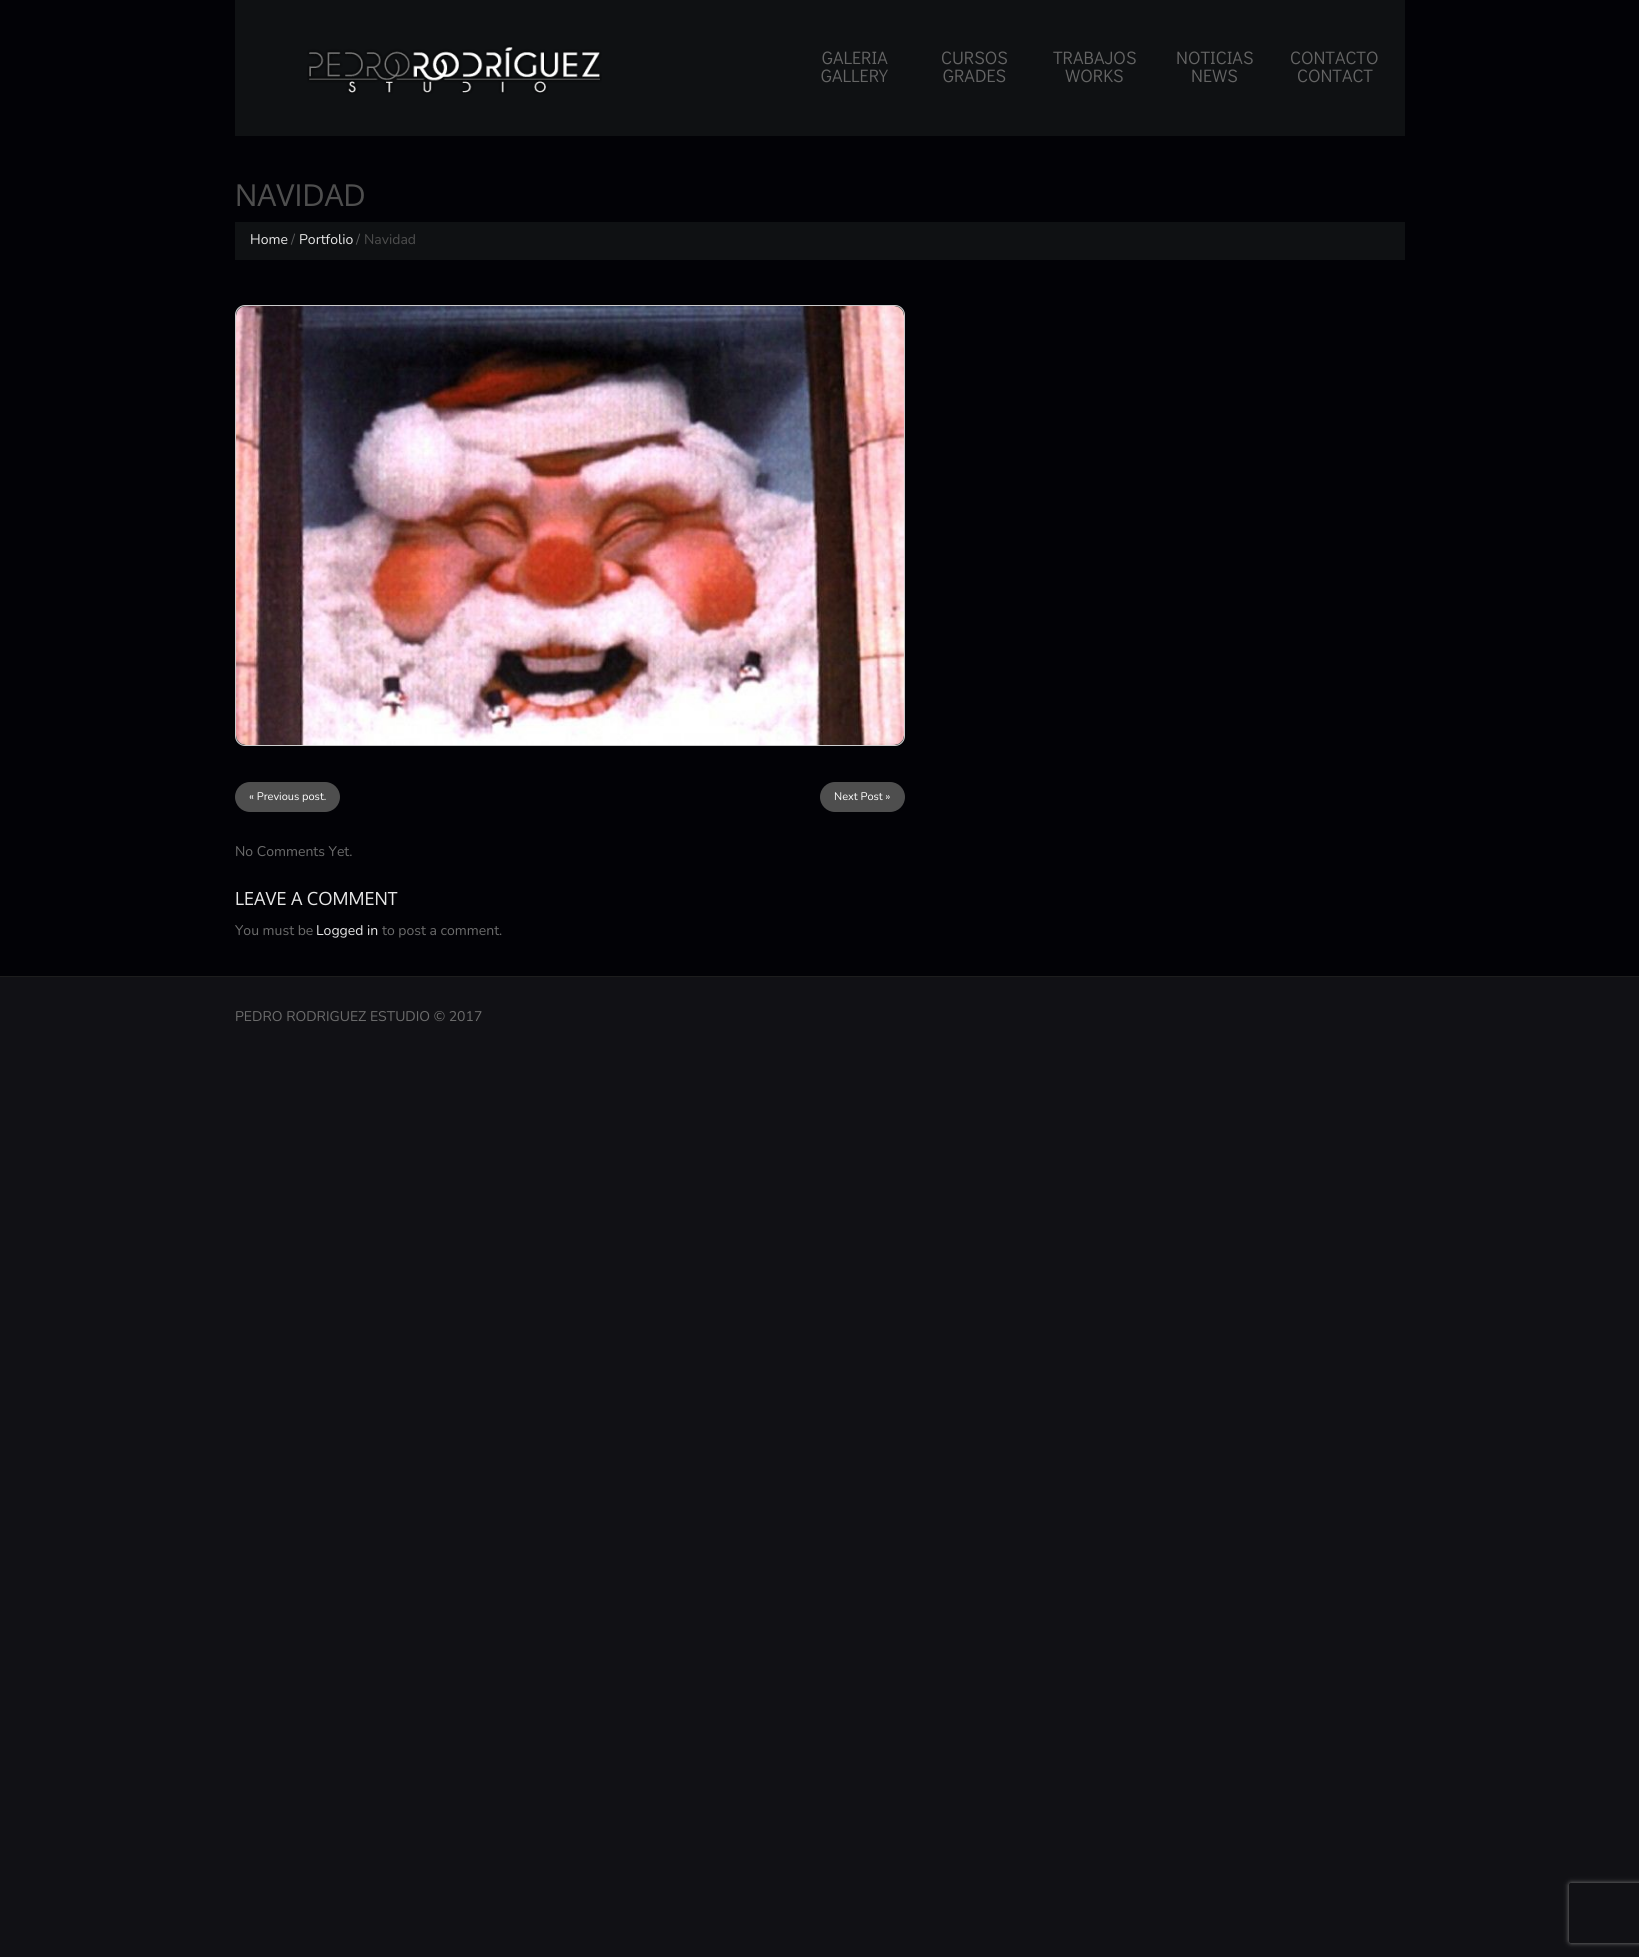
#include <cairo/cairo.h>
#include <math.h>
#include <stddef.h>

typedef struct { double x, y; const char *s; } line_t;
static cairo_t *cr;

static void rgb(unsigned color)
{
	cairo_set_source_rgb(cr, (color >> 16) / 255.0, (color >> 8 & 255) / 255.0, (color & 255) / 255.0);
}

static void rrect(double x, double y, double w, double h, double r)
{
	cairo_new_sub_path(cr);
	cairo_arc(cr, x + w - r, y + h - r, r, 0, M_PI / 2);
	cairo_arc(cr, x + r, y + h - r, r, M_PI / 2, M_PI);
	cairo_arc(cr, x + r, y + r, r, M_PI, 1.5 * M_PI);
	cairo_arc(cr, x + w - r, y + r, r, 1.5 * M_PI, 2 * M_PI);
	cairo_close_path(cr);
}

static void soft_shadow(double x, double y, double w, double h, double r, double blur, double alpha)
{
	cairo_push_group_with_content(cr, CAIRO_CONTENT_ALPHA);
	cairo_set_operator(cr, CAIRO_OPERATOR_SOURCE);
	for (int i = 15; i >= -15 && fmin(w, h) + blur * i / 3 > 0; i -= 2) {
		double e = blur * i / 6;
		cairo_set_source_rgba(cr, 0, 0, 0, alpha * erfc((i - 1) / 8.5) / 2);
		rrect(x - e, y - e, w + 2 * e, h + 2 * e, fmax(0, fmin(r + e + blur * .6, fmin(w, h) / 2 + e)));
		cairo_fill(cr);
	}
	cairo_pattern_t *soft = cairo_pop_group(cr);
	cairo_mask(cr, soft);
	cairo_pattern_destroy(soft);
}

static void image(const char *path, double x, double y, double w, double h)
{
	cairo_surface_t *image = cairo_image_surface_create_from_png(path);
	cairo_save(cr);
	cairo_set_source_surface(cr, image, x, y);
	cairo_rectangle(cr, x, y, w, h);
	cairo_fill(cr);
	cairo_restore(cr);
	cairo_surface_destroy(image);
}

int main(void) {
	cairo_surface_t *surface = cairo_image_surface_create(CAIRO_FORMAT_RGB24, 1639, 1957);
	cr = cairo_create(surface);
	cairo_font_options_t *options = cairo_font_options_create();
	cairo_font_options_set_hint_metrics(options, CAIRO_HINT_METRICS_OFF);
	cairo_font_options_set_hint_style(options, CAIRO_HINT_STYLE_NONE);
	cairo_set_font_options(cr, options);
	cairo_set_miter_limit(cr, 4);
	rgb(0x111115);
	cairo_paint(cr);
	rgb(0x020206);
	cairo_rectangle(cr, 0, 0, 1639, 976);
	cairo_fill(cr);
	rgb(0x0f1113);
	cairo_rectangle(cr, 235, 0, 1170, 136);
	cairo_fill(cr);
	image("img/1.png", 307, 45, 295, 49);
	cairo_rectangle(cr, 235, 222, 1170, 38);
	cairo_fill(cr);
	rgb(0x525252);
	rrect(235.5, 305.5, 669, 440, 9.5);
	cairo_fill_preserve(cr);
	rgb(0xcdcdcd);
	cairo_set_line_width(cr, 1);
	cairo_stroke(cr);
	image("img/2.png", 236, 306, 668, 439);
	rgb(0x4e4e4e);
	rrect(235, 782, 105, 30, 15);
	cairo_fill(cr);
	rrect(820, 782, 85, 30, 15);
	cairo_fill(cr);
	rgb(0x1d1d1d);
	cairo_rectangle(cr, 0, 976, 1639, 1);
	cairo_fill(cr);
	cairo_save(cr);
	cairo_set_fill_rule(cr, CAIRO_FILL_RULE_EVEN_ODD);
	cairo_new_path(cr);
	cairo_move_to(cr, 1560, 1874);
	cairo_line_to(cr, 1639, 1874);
	cairo_line_to(cr, 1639, 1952);
	cairo_line_to(cr, 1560, 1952);
	cairo_close_path(cr);
	cairo_move_to(cr, 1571, 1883);
	cairo_line_to(cr, 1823, 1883);
	cairo_curve_to(cr, 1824, 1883, 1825, 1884, 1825, 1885);
	cairo_line_to(cr, 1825, 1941);
	cairo_curve_to(cr, 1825, 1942, 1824, 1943, 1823, 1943);
	cairo_line_to(cr, 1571, 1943);
	cairo_curve_to(cr, 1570, 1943, 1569, 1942, 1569, 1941);
	cairo_line_to(cr, 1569, 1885);
	cairo_curve_to(cr, 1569, 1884, 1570, 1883, 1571, 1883);
	cairo_close_path(cr);
	cairo_clip(cr);
	rgb(0x808080);
	soft_shadow(1569, 1883, 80, 60, 2, 2.5, 1);
	cairo_restore(cr);
	cairo_select_font_face(cr, "Didact Gothic", CAIRO_FONT_SLANT_NORMAL, CAIRO_FONT_WEIGHT_NORMAL);
	cairo_set_font_size(cr, 18);
	rgb(0x656565);
	{
		static const line_t items[] = {
			{822, 64, "GALERIA"},
			{821, 82, "GALLERY"},
			{941, 64, "CURSOS"},
			{943, 82, "GRADES"},
			{1053, 64, "TRABAJOS"},
			{1065, 82, "WORKS"},
			{1176, 64, "NOTICIAS"},
			{1191, 82, "NEWS"},
			{1290, 64, "CONTACTO"},
			{1297, 82, "CONTACT"},
		};
		for (size_t i = 0; i < sizeof items / sizeof *items; i++) {
			cairo_move_to(cr, items[i].x, items[i].y);
			cairo_show_text(cr, items[i].s);
		}
	}
	cairo_select_font_face(cr, "Oxygen", CAIRO_FONT_SLANT_NORMAL, CAIRO_FONT_WEIGHT_NORMAL);
	cairo_set_font_size(cr, 30);
	rgb(0x4e4e4e);
	cairo_move_to(cr, 235, 206);
	cairo_show_text(cr, "NAVIDAD");
	cairo_select_font_face(cr, "Nunito", CAIRO_FONT_SLANT_NORMAL, CAIRO_FONT_WEIGHT_NORMAL);
	cairo_set_font_size(cr, 14);
	rgb(0xe7e7e7);
	cairo_move_to(cr, 250, 244);
	cairo_show_text(cr, "Home");
	rgb(0x575859);
	cairo_move_to(cr, 291, 244);
	cairo_show_text(cr, "/");
	rgb(0xe7e7e7);
	cairo_move_to(cr, 299, 244);
	cairo_show_text(cr, "Portfolio");
	rgb(0x575859);
	cairo_move_to(cr, 356, 244);
	cairo_show_text(cr, "/");
	rgb(0x4e4e4e);
	cairo_move_to(cr, 364, 244);
	cairo_show_text(cr, "Navidad");
	cairo_set_font_size(cr, 11);
	rgb(0xffffff);
	cairo_move_to(cr, 249, 800);
	cairo_show_text(cr, "« Previous post.");
	cairo_move_to(cr, 834, 800);
	cairo_show_text(cr, "Next Post »");
	cairo_set_font_size(cr, 14);
	rgb(0x6c6c6c);
	cairo_move_to(cr, 235, 856);
	cairo_show_text(cr, "No Comments Yet.");
	cairo_select_font_face(cr, "Oxygen", CAIRO_FONT_SLANT_NORMAL, CAIRO_FONT_WEIGHT_NORMAL);
	cairo_set_font_size(cr, 18);
	rgb(0xe7e7e7);
	cairo_move_to(cr, 235, 905);
	cairo_show_text(cr, "LEAVE A COMMENT");
	cairo_select_font_face(cr, "Nunito", CAIRO_FONT_SLANT_NORMAL, CAIRO_FONT_WEIGHT_NORMAL);
	cairo_set_font_size(cr, 14);
	rgb(0x6c6c6c);
	cairo_move_to(cr, 235, 935);
	cairo_show_text(cr, "You must be");
	rgb(0xe7e7e7);
	cairo_move_to(cr, 316, 935);
	cairo_show_text(cr, "Logged in");
	rgb(0x6c6c6c);
	cairo_move_to(cr, 382, 935);
	cairo_show_text(cr, "to post a comment.");
	cairo_move_to(cr, 235, 1021);
	cairo_show_text(cr, "PEDRO RODRIGUEZ ESTUDIO © 2017");
	cairo_surface_write_to_png(surface, "page.png");
	cairo_font_options_destroy(options);
	cairo_destroy(cr);
	cairo_surface_destroy(surface);
	return 0;
}
